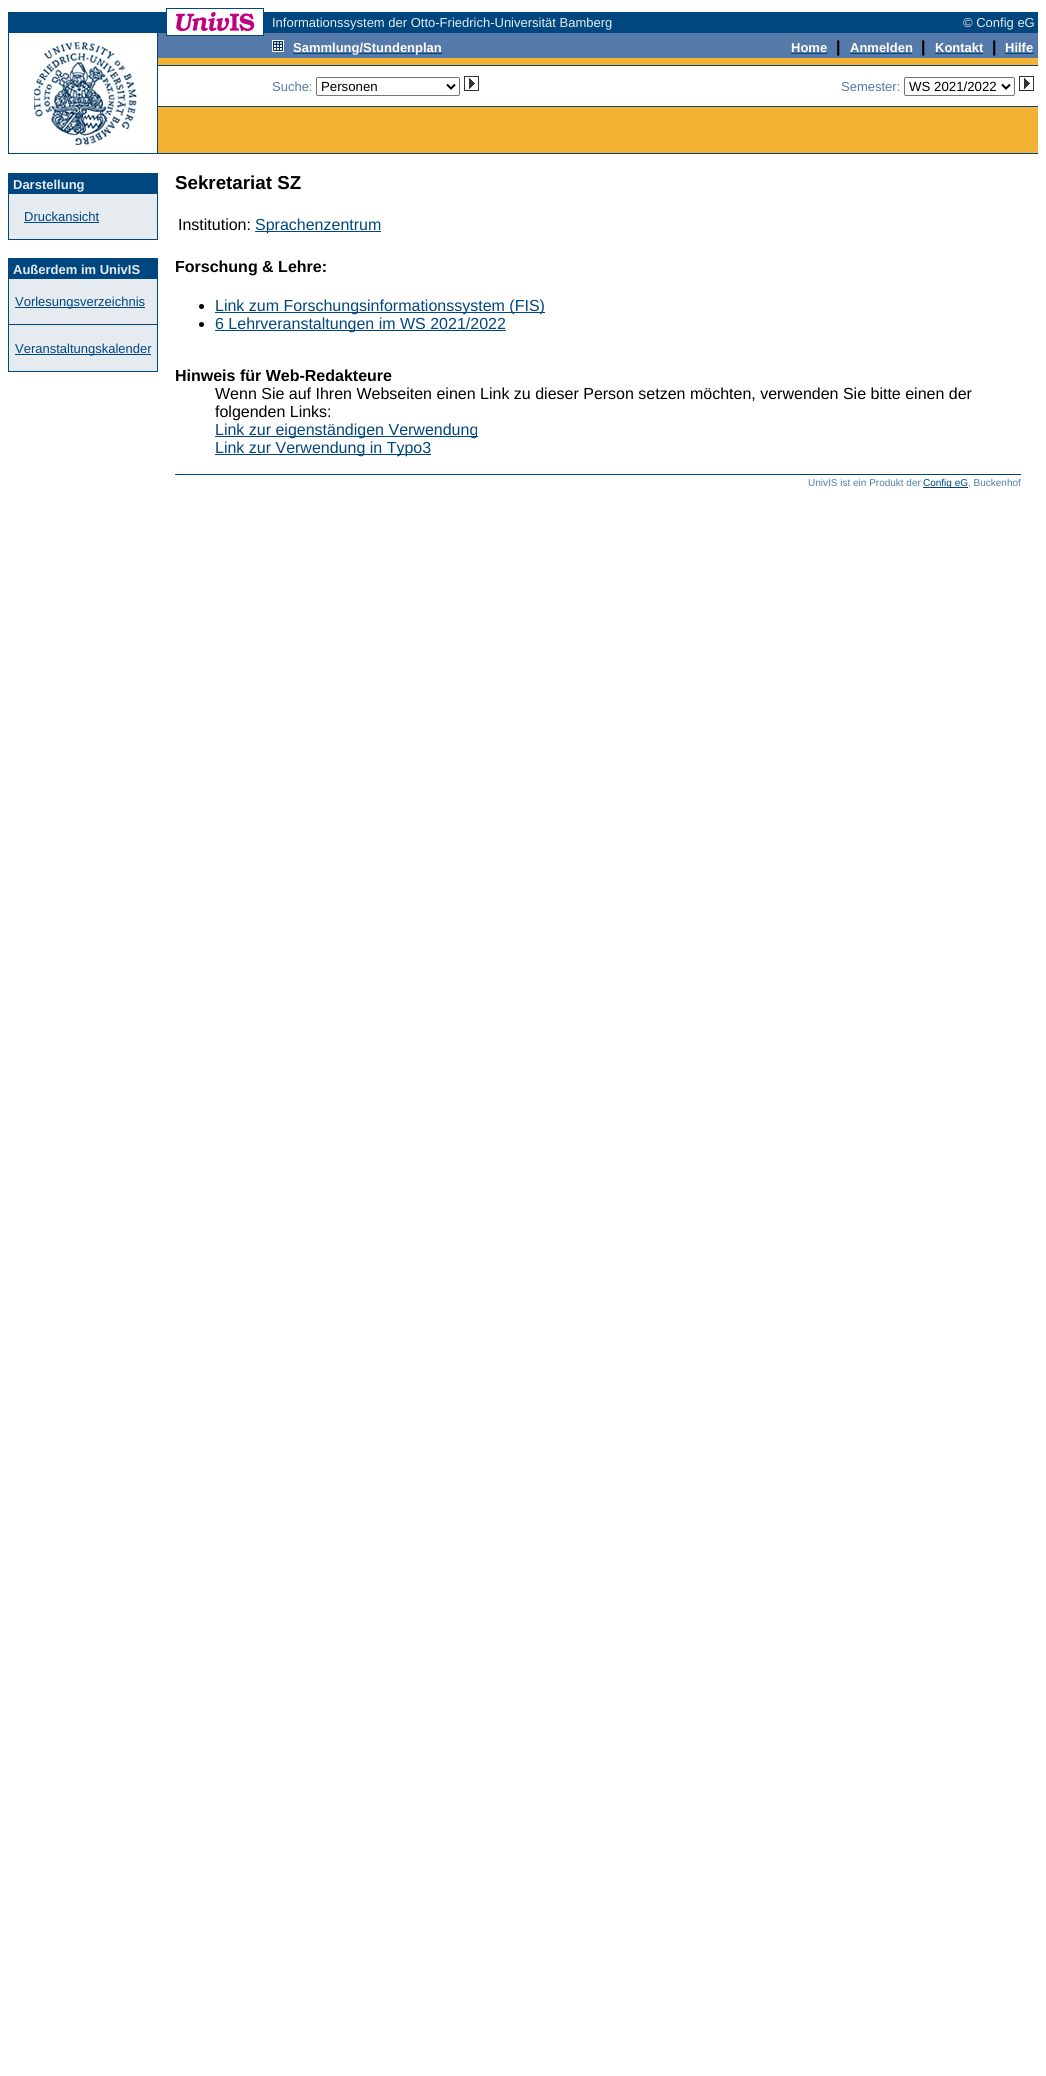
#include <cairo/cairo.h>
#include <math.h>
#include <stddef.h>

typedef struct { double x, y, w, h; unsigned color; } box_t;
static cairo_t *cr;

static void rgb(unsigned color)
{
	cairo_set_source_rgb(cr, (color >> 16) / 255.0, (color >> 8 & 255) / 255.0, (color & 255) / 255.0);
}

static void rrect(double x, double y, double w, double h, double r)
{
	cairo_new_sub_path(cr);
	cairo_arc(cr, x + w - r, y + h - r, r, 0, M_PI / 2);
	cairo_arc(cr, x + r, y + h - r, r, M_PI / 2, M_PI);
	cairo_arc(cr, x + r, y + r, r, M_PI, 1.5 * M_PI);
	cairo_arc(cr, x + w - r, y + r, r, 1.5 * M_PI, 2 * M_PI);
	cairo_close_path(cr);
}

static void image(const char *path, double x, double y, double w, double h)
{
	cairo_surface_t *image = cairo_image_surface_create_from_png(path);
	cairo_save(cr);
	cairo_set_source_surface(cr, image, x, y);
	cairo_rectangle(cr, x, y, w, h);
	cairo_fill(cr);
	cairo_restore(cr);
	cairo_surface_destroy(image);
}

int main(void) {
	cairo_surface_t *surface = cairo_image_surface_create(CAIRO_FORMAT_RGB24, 1046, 2076);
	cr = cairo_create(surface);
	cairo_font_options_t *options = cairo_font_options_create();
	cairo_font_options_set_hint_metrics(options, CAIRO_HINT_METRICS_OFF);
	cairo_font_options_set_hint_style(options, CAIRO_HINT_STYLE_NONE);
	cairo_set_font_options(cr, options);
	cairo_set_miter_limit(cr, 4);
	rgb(0xffffff);
	cairo_paint(cr);
	{
		static const box_t items[] = {
			{166, 8, 98, 1, 0x00467f},
			{166, 9, 1, 3, 0x00467f},
			{263, 9, 1, 23, 0x00467f},
			{8, 12, 159, 20, 0x00467f},
		};
		for (size_t i = 0; i < sizeof items / sizeof *items; i++) {
			rgb(items[i].color);
			cairo_rectangle(cr, items[i].x, items[i].y, items[i].w, items[i].h);
			cairo_fill(cr);
		}
	}
	image("img/1.png", 176, 12, 79, 19);
	{
		static const box_t items[] = {
			{264, 12, 774, 20, 0x00467f},
			{8, 32, 1030, 1, 0x00467f},
			{167, 32, 96, 1, 0xffffff},
			{8, 33, 1, 121, 0x00467f},
		};
		for (size_t i = 0; i < sizeof items / sizeof *items; i++) {
			rgb(items[i].color);
			cairo_rectangle(cr, items[i].x, items[i].y, items[i].w, items[i].h);
			cairo_fill(cr);
		}
	}
	image("img/2.png", 34, 42, 103, 103);
	{
		static const box_t items[] = {
			{157, 33, 1, 120, 0x00467f},
			{158, 58, 880, 95, 0xf3b231},
			{158, 33, 880, 2, 0x557aa9},
			{166, 33, 1, 2, 0x00467f},
			{167, 33, 96, 2, 0xffffff},
			{263, 33, 1, 2, 0x00467f},
			{158, 35, 880, 2, 0x557aa9},
			{166, 35, 98, 1, 0x00467f},
			{158, 37, 880, 21, 0x557aa9},
		};
		for (size_t i = 0; i < sizeof items / sizeof *items; i++) {
			rgb(items[i].color);
			cairo_rectangle(cr, items[i].x, items[i].y, items[i].w, items[i].h);
			cairo_fill(cr);
		}
	}
	image("img/3.png", 272, 40, 12, 12);
	{
		static const box_t items[] = {
			{293, 53, 149, 1, 0x00467f},
			{791, 53, 36, 1, 0x00467f},
			{850, 53, 62, 1, 0x00467f},
			{935, 53, 48, 1, 0x00467f},
			{1005, 53, 29, 1, 0x00467f},
			{158, 65, 880, 1, 0x00467f},
			{158, 66, 880, 40, 0xffffff},
		};
		for (size_t i = 0; i < sizeof items / sizeof *items; i++) {
			rgb(items[i].color);
			cairo_rectangle(cr, items[i].x, items[i].y, items[i].w, items[i].h);
			cairo_fill(cr);
		}
	}
	rrect(316.5, 77.5, 143, 18, 1.5);
	rgb(0x767676);
	cairo_set_line_width(cr, 1);
	cairo_stroke(cr);
	cairo_new_path(cr);
	cairo_move_to(cr, 447, 84.5);
	cairo_line_to(cr, 451, 88.5);
	cairo_line_to(cr, 455, 84.5);
	rgb(0x000000);
	cairo_set_line_width(cr, 2);
	cairo_stroke(cr);
	image("img/4.png", 464, 76, 15, 15);
	rrect(904.5, 77.5, 110, 18, 1.5);
	rgb(0x767676);
	cairo_set_line_width(cr, 1);
	cairo_stroke(cr);
	cairo_new_path(cr);
	cairo_move_to(cr, 1002, 84.5);
	cairo_line_to(cr, 1006, 88.5);
	cairo_line_to(cr, 1010, 84.5);
	rgb(0x000000);
	cairo_set_line_width(cr, 2);
	cairo_stroke(cr);
	image("img/4.png", 1019, 76, 15, 15);
	{
		static const box_t items[] = {
			{158, 106, 880, 1, 0x00467f},
			{9, 153, 1029, 1, 0x00467f},
			{8, 173, 1, 67, 0x00467f},
			{9, 173, 148, 21, 0x00467f},
			{157, 173, 1, 67, 0x00467f},
			{9, 194, 148, 45, 0xe5ebef},
			{24, 222, 75, 1, 0x00467f},
			{9, 239, 148, 1, 0x00467f},
			{8, 258, 1, 114, 0x00467f},
			{9, 258, 148, 21, 0x00467f},
			{157, 258, 1, 114, 0x00467f},
			{9, 279, 148, 45, 0xe5ebef},
			{15, 307, 130, 1, 0x00467f},
			{9, 324, 148, 1, 0x00467f},
			{9, 325, 148, 1, 0xe5ebef},
			{9, 326, 148, 45, 0xe5ebef},
			{15, 354, 136, 1, 0x00467f},
			{9, 371, 148, 1, 0x00467f},
			{255, 231, 126, 1, 0x00467f},
		};
		for (size_t i = 0; i < sizeof items / sizeof *items; i++) {
			rgb(items[i].color);
			cairo_rectangle(cr, items[i].x, items[i].y, items[i].w, items[i].h);
			cairo_fill(cr);
		}
	}
	rgb(0x000000);
	cairo_arc(cr, 201.5, 306.5, 2.5, 0, 2 * M_PI);
	cairo_fill(cr);
	rgb(0x00467f);
	cairo_rectangle(cr, 215, 312, 330, 1);
	cairo_fill(cr);
	rgb(0x000000);
	cairo_arc(cr, 201.5, 324.5, 2.5, 0, 2 * M_PI);
	cairo_fill(cr);
	{
		static const box_t items[] = {
			{215, 330, 291, 1, 0x00467f},
			{215, 436, 263, 1, 0x00467f},
			{215, 454, 216, 1, 0x00467f},
			{175, 474, 846, 1, 0x00467f},
			{923, 487, 45, 1, 0x00467f},
		};
		for (size_t i = 0; i < sizeof items / sizeof *items; i++) {
			rgb(items[i].color);
			cairo_rectangle(cr, items[i].x, items[i].y, items[i].w, items[i].h);
			cairo_fill(cr);
		}
	}
	cairo_select_font_face(cr, "Liberation Sans", CAIRO_FONT_SLANT_NORMAL, CAIRO_FONT_WEIGHT_NORMAL);
	cairo_set_font_size(cr, 13);
	rgb(0xe5ebef);
	cairo_move_to(cr, 272, 27);
	cairo_show_text(cr, "Informationssystem der Otto-Friedrich-Universität Bamberg");
	cairo_move_to(cr, 963, 27);
	cairo_show_text(cr, "© Config eG");
	cairo_select_font_face(cr, "Liberation Sans", CAIRO_FONT_SLANT_NORMAL, CAIRO_FONT_WEIGHT_BOLD);
	rgb(0xffffff);
	cairo_move_to(cr, 293, 52);
	cairo_show_text(cr, "Sammlung/Stundenplan");
	cairo_move_to(cr, 791, 52);
	cairo_show_text(cr, "Home");
	cairo_set_font_size(cr, 16);
	rgb(0x000000);
	cairo_move_to(cr, 836, 52);
	cairo_show_text(cr, "|");
	cairo_set_font_size(cr, 13);
	rgb(0xffffff);
	cairo_move_to(cr, 850, 52);
	cairo_show_text(cr, "Anmelden");
	cairo_set_font_size(cr, 16);
	rgb(0x000000);
	cairo_move_to(cr, 921, 52);
	cairo_show_text(cr, "|");
	cairo_set_font_size(cr, 13);
	rgb(0xffffff);
	cairo_move_to(cr, 935, 52);
	cairo_show_text(cr, "Kontakt");
	cairo_set_font_size(cr, 16);
	rgb(0x000000);
	cairo_move_to(cr, 992, 52);
	cairo_show_text(cr, "|");
	cairo_set_font_size(cr, 13);
	rgb(0xffffff);
	cairo_move_to(cr, 1005, 52);
	cairo_show_text(cr, "Hilfe");
	cairo_select_font_face(cr, "Liberation Sans", CAIRO_FONT_SLANT_NORMAL, CAIRO_FONT_WEIGHT_NORMAL);
	rgb(0x557aa9);
	cairo_move_to(cr, 272, 91);
	cairo_show_text(cr, "Suche:");
	cairo_set_font_size(cr, 13.25);
	rgb(0x000000);
	cairo_move_to(cr, 321, 91);
	cairo_show_text(cr, "Personen");
	cairo_set_font_size(cr, 13);
	rgb(0x557aa9);
	cairo_move_to(cr, 841, 91);
	cairo_show_text(cr, "Semester:");
	cairo_set_font_size(cr, 13.25);
	rgb(0x000000);
	cairo_move_to(cr, 909, 91);
	cairo_show_text(cr, "WS 2021/2022");
	cairo_select_font_face(cr, "Liberation Sans", CAIRO_FONT_SLANT_NORMAL, CAIRO_FONT_WEIGHT_BOLD);
	cairo_set_font_size(cr, 13);
	rgb(0xe5ebef);
	cairo_move_to(cr, 13, 189);
	cairo_show_text(cr, "Darstellung");
	cairo_select_font_face(cr, "Liberation Sans", CAIRO_FONT_SLANT_NORMAL, CAIRO_FONT_WEIGHT_NORMAL);
	rgb(0x00467f);
	cairo_move_to(cr, 24, 221);
	cairo_show_text(cr, "Druckansicht");
	cairo_select_font_face(cr, "Liberation Sans", CAIRO_FONT_SLANT_NORMAL, CAIRO_FONT_WEIGHT_BOLD);
	rgb(0xe5ebef);
	cairo_move_to(cr, 13, 274);
	cairo_show_text(cr, "Außerdem im UnivIS");
	cairo_select_font_face(cr, "Liberation Sans", CAIRO_FONT_SLANT_NORMAL, CAIRO_FONT_WEIGHT_NORMAL);
	rgb(0x00467f);
	cairo_move_to(cr, 15, 306);
	cairo_show_text(cr, "Vorlesungsverzeichnis");
	cairo_move_to(cr, 15, 353);
	cairo_show_text(cr, "Veranstaltungskalender");
	cairo_select_font_face(cr, "Liberation Sans", CAIRO_FONT_SLANT_NORMAL, CAIRO_FONT_WEIGHT_BOLD);
	cairo_set_font_size(cr, 18.75);
	rgb(0x000000);
	cairo_move_to(cr, 175, 189);
	cairo_show_text(cr, "Sekretariat SZ");
	cairo_select_font_face(cr, "Liberation Sans", CAIRO_FONT_SLANT_NORMAL, CAIRO_FONT_WEIGHT_NORMAL);
	cairo_set_font_size(cr, 16);
	cairo_move_to(cr, 178, 230);
	cairo_show_text(cr, "Institution:");
	rgb(0x00467f);
	cairo_move_to(cr, 255, 230);
	cairo_show_text(cr, "Sprachenzentrum");
	cairo_select_font_face(cr, "Liberation Sans", CAIRO_FONT_SLANT_NORMAL, CAIRO_FONT_WEIGHT_BOLD);
	rgb(0x000000);
	cairo_move_to(cr, 175, 272);
	cairo_show_text(cr, "Forschung & Lehre:");
	cairo_select_font_face(cr, "Liberation Sans", CAIRO_FONT_SLANT_NORMAL, CAIRO_FONT_WEIGHT_NORMAL);
	rgb(0x00467f);
	cairo_move_to(cr, 215, 311);
	cairo_show_text(cr, "Link zum Forschungsinformationssystem (FIS)");
	cairo_move_to(cr, 215, 329);
	cairo_show_text(cr, "6 Lehrveranstaltungen im WS 2021/2022");
	cairo_select_font_face(cr, "Liberation Sans", CAIRO_FONT_SLANT_NORMAL, CAIRO_FONT_WEIGHT_BOLD);
	rgb(0x000000);
	cairo_move_to(cr, 175, 381);
	cairo_show_text(cr, "Hinweis für Web-Redakteure");
	cairo_select_font_face(cr, "Liberation Sans", CAIRO_FONT_SLANT_NORMAL, CAIRO_FONT_WEIGHT_NORMAL);
	cairo_move_to(cr, 215, 399);
	cairo_show_text(cr, "Wenn Sie auf Ihren Webseiten einen Link zu dieser Person setzen möchten, verwenden Sie bitte einen der");
	cairo_move_to(cr, 215, 417);
	cairo_show_text(cr, "folgenden Links:");
	rgb(0x00467f);
	cairo_move_to(cr, 215, 435);
	cairo_show_text(cr, "Link zur eigenständigen Verwendung");
	cairo_move_to(cr, 215, 453);
	cairo_show_text(cr, "Link zur Verwendung in Typo3");
	cairo_set_font_size(cr, 10);
	rgb(0x557aa9);
	cairo_move_to(cr, 808, 486);
	cairo_show_text(cr, "UnivIS ist ein Produkt der");
	rgb(0x00467f);
	cairo_move_to(cr, 923, 486);
	cairo_show_text(cr, "Config eG");
	rgb(0x557aa9);
	cairo_move_to(cr, 968, 486);
	cairo_show_text(cr, ", Buckenhof");
	cairo_surface_write_to_png(surface, "page.png");
	cairo_font_options_destroy(options);
	cairo_destroy(cr);
	cairo_surface_destroy(surface);
	return 0;
}
